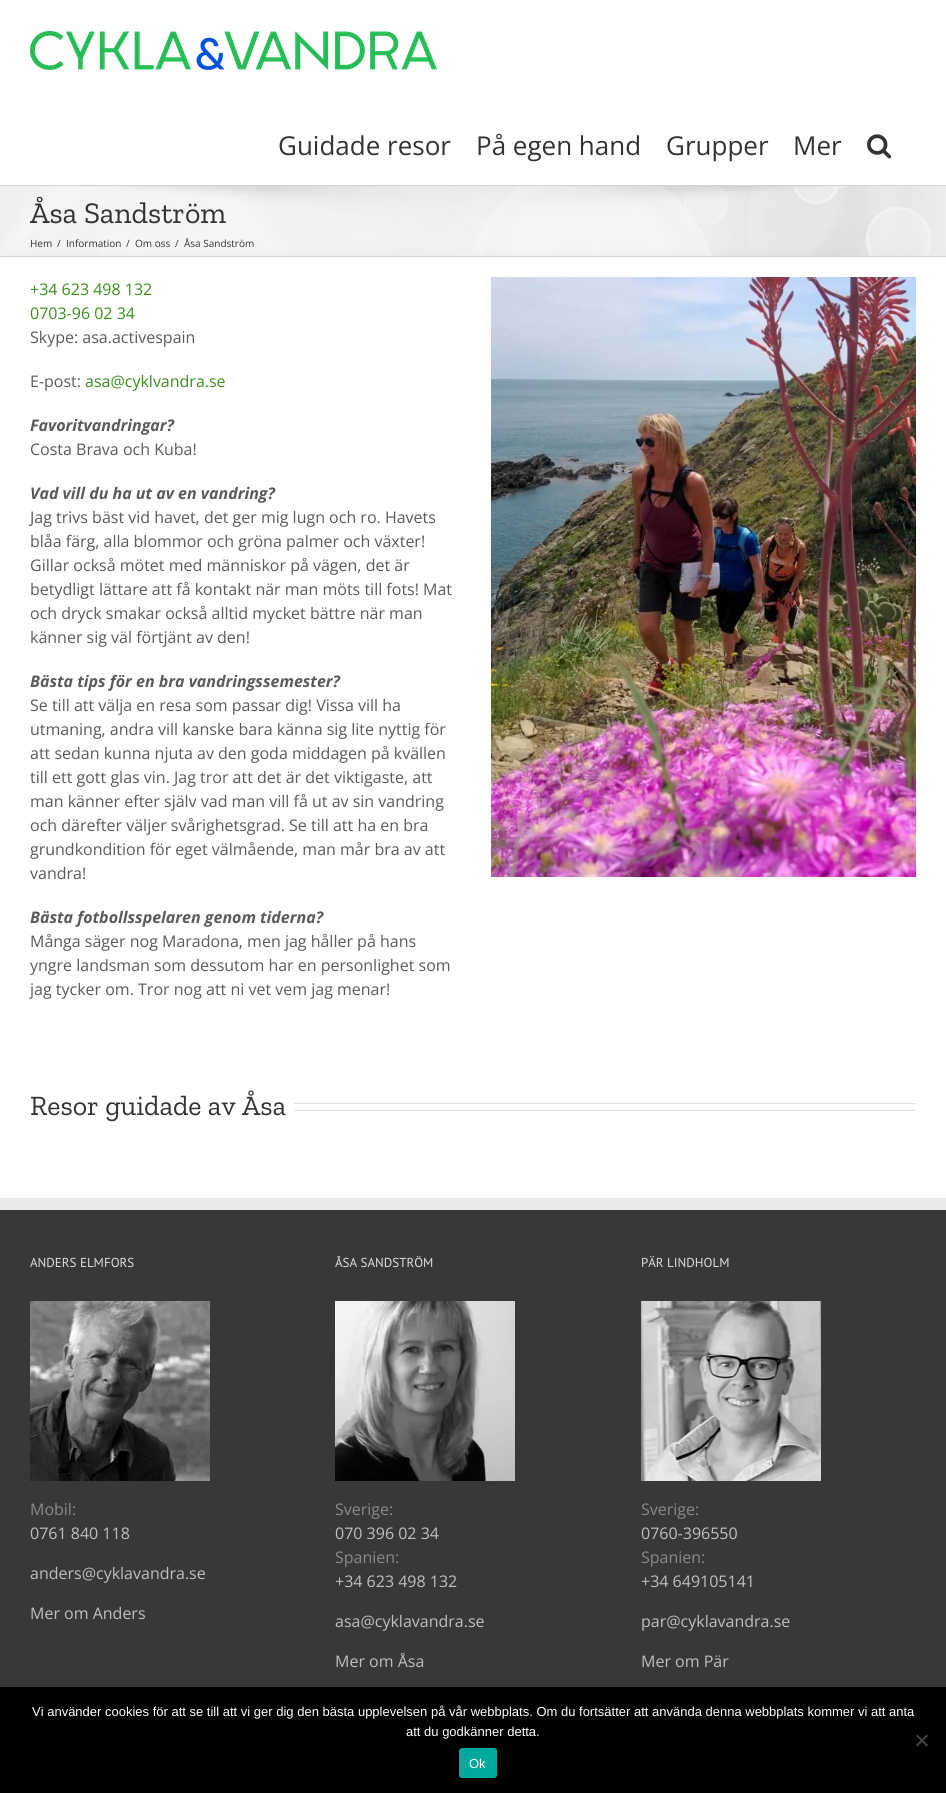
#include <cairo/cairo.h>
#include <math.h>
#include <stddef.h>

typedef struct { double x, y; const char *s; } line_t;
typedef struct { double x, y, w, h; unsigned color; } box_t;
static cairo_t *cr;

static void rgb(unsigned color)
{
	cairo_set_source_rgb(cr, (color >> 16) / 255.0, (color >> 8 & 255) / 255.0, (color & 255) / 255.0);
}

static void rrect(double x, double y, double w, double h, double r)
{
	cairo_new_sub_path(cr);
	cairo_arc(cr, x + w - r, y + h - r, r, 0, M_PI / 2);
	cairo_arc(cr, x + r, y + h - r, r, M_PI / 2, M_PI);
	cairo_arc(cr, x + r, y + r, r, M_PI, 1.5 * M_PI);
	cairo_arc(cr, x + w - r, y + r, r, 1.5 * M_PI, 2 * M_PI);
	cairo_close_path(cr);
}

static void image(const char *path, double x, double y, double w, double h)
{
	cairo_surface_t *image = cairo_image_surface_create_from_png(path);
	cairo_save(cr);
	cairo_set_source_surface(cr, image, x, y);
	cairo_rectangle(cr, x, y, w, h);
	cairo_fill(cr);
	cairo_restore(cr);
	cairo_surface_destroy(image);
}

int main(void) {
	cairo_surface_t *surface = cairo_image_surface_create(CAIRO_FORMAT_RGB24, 946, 1793);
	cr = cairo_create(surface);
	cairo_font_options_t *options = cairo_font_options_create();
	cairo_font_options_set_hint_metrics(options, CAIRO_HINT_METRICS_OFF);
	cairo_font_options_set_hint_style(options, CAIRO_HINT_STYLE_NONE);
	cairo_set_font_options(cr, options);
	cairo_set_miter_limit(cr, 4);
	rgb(0xffffff);
	cairo_paint(cr);
	image("img/1.png", 30, 31, 407, 39);
	image("img/2.png", 867, 134, 25, 25);
	rgb(0xf6f6f6);
	cairo_rectangle(cr, 0, 186, 946, 70);
	cairo_fill(cr);
	image("img/3.png", 0, 186, 946, 70);
	rgb(0xd2d3d4);
	cairo_rectangle(cr, 0, 185, 946, 1);
	cairo_fill(cr);
	cairo_rectangle(cr, 0, 256, 946, 1);
	cairo_fill(cr);
	image("img/4.png", 491, 277, 425, 600);
	{
		static const box_t items[] = {
			{294, 1103, 622, 1, 0xe0dede},
			{294, 1110, 622, 1, 0xe0dede},
			{0, 1210, 946, 477, 0x363839},
			{0, 1198, 946, 12, 0xe9eaee},
		};
		for (size_t i = 0; i < sizeof items / sizeof *items; i++) {
			rgb(items[i].color);
			cairo_rectangle(cr, items[i].x, items[i].y, items[i].w, items[i].h);
			cairo_fill(cr);
		}
	}
	image("img/5.png", 30, 1301, 180, 180);
	image("img/6.png", 335, 1301, 180, 180);
	image("img/7.png", 641, 1301, 180, 180);
	rgb(0x000000);
	cairo_rectangle(cr, 0, 1687, 946, 106);
	cairo_fill(cr);
	rgb(0x404040);
	cairo_new_path(cr);
	cairo_move_to(cr, 926.5, 1734.5);
	cairo_line_to(cr, 928, 1736);
	cairo_line_to(cr, 917.5, 1746.5);
	cairo_line_to(cr, 916, 1745);
	cairo_close_path(cr);
	cairo_fill(cr);
	cairo_new_path(cr);
	cairo_move_to(cr, 916, 1736);
	cairo_line_to(cr, 917.5, 1734.5);
	cairo_line_to(cr, 928, 1745);
	cairo_line_to(cr, 926.5, 1746.5);
	cairo_close_path(cr);
	cairo_fill(cr);
	rgb(0x00a99d);
	rrect(459, 1748, 38, 30, 3);
	cairo_fill(cr);
	cairo_select_font_face(cr, "Open Sans", CAIRO_FONT_SLANT_NORMAL, CAIRO_FONT_WEIGHT_NORMAL);
	cairo_set_font_size(cr, 26);
	rgb(0x333333);
	{
		static const line_t items[] = {
			{278, 155, "Guidade resor"},
			{476, 155, "På egen hand"},
			{666, 155, "Grupper"},
			{793, 155, "Mer"},
		};
		for (size_t i = 0; i < sizeof items / sizeof *items; i++) {
			cairo_move_to(cr, items[i].x, items[i].y);
			cairo_show_text(cr, items[i].s);
		}
	}
	cairo_select_font_face(cr, "Zilla Slab", CAIRO_FONT_SLANT_NORMAL, CAIRO_FONT_WEIGHT_NORMAL);
	cairo_set_font_size(cr, 30);
	cairo_move_to(cr, 30, 223);
	cairo_show_text(cr, "Åsa Sandström");
	cairo_select_font_face(cr, "Open Sans", CAIRO_FONT_SLANT_NORMAL, CAIRO_FONT_WEIGHT_NORMAL);
	cairo_set_font_size(cr, 10);
	{
		static const line_t items[] = {
			{30, 247, "Hem"},
			{57, 247, "/"},
			{66, 247, "Information"},
			{126, 247, "/"},
			{135, 247, "Om oss"},
			{175, 247, "/"},
			{184, 247, "Åsa Sandström"},
		};
		for (size_t i = 0; i < sizeof items / sizeof *items; i++) {
			cairo_move_to(cr, items[i].x, items[i].y);
			cairo_show_text(cr, items[i].s);
		}
	}
	cairo_set_font_size(cr, 16);
	rgb(0x398f1a);
	cairo_move_to(cr, 30, 295);
	cairo_show_text(cr, "+34 623 498 132");
	cairo_move_to(cr, 30, 319);
	cairo_show_text(cr, "0703-96 02 34");
	rgb(0x5b5b5b);
	cairo_move_to(cr, 30, 343);
	cairo_show_text(cr, "Skype: asa.activespain");
	cairo_move_to(cr, 30, 387);
	cairo_show_text(cr, "E-post:");
	rgb(0x398f1a);
	cairo_move_to(cr, 85, 387);
	cairo_show_text(cr, "asa@cyklvandra.se");
	cairo_select_font_face(cr, "Open Sans", CAIRO_FONT_SLANT_ITALIC, CAIRO_FONT_WEIGHT_BOLD);
	rgb(0x5b5b5b);
	cairo_move_to(cr, 30, 431);
	cairo_show_text(cr, "Favoritvandringar?");
	cairo_select_font_face(cr, "Open Sans", CAIRO_FONT_SLANT_NORMAL, CAIRO_FONT_WEIGHT_NORMAL);
	cairo_move_to(cr, 30, 455);
	cairo_show_text(cr, "Costa Brava och Kuba!");
	cairo_select_font_face(cr, "Open Sans", CAIRO_FONT_SLANT_ITALIC, CAIRO_FONT_WEIGHT_BOLD);
	cairo_move_to(cr, 30, 499);
	cairo_show_text(cr, "Vad vill du ha ut av en vandring?");
	cairo_select_font_face(cr, "Open Sans", CAIRO_FONT_SLANT_NORMAL, CAIRO_FONT_WEIGHT_NORMAL);
	{
		static const line_t items[] = {
			{30, 523, "Jag trivs bäst vid havet, det ger mig lugn och ro. Havets"},
			{30, 547, "blåa färg, alla blommor och gröna palmer och växter!"},
			{30, 571, "Gillar också mötet med människor på vägen, det är"},
			{30, 595, "betydligt lättare att få kontakt när man möts till fots! Mat"},
			{30, 619, "och dryck smakar också alltid mycket bättre när man"},
			{30, 643, "känner sig väl förtjänt av den!"},
		};
		for (size_t i = 0; i < sizeof items / sizeof *items; i++) {
			cairo_move_to(cr, items[i].x, items[i].y);
			cairo_show_text(cr, items[i].s);
		}
	}
	cairo_select_font_face(cr, "Open Sans", CAIRO_FONT_SLANT_ITALIC, CAIRO_FONT_WEIGHT_BOLD);
	cairo_move_to(cr, 30, 687);
	cairo_show_text(cr, "Bästa tips för en bra vandringssemester?");
	cairo_select_font_face(cr, "Open Sans", CAIRO_FONT_SLANT_NORMAL, CAIRO_FONT_WEIGHT_NORMAL);
	{
		static const line_t items[] = {
			{30, 711, "Se till att välja en resa som passar dig! Vissa vill ha"},
			{30, 735, "utmaning, andra vill kanske bara känna sig lite nyttig för"},
			{30, 759, "att sedan kunna njuta av den goda middagen på kvällen"},
			{30, 783, "till ett gott glas vin. Jag tror att det är det viktigaste, att"},
			{30, 807, "man känner efter själv vad man vill få ut av sin vandring"},
			{30, 831, "och därefter väljer svårighetsgrad. Se till att ha en bra"},
			{30, 855, "grundkondition för eget välmående, man mår bra av att"},
			{30, 879, "vandra!"},
		};
		for (size_t i = 0; i < sizeof items / sizeof *items; i++) {
			cairo_move_to(cr, items[i].x, items[i].y);
			cairo_show_text(cr, items[i].s);
		}
	}
	cairo_select_font_face(cr, "Open Sans", CAIRO_FONT_SLANT_ITALIC, CAIRO_FONT_WEIGHT_BOLD);
	cairo_move_to(cr, 30, 923);
	cairo_show_text(cr, "Bästa fotbollsspelaren genom tiderna?");
	cairo_select_font_face(cr, "Open Sans", CAIRO_FONT_SLANT_NORMAL, CAIRO_FONT_WEIGHT_NORMAL);
	{
		static const line_t items[] = {
			{30, 947, "Många säger nog Maradona, men jag håller på hans"},
			{30, 971, "yngre landsman som dessutom har en personlighet som"},
			{30, 995, "jag tycker om. Tror nog att ni vet vem jag menar!"},
		};
		for (size_t i = 0; i < sizeof items / sizeof *items; i++) {
			cairo_move_to(cr, items[i].x, items[i].y);
			cairo_show_text(cr, items[i].s);
		}
	}
	cairo_select_font_face(cr, "Zilla Slab", CAIRO_FONT_SLANT_NORMAL, CAIRO_FONT_WEIGHT_NORMAL);
	cairo_set_font_size(cr, 28);
	rgb(0x333333);
	cairo_move_to(cr, 30, 1115);
	cairo_show_text(cr, "Resor guidade av Åsa");
	cairo_select_font_face(cr, "PT Sans", CAIRO_FONT_SLANT_NORMAL, CAIRO_FONT_WEIGHT_NORMAL);
	cairo_set_font_size(cr, 13);
	rgb(0xdddddd);
	cairo_move_to(cr, 30, 1267);
	cairo_show_text(cr, "ANDERS ELMFORS");
	cairo_select_font_face(cr, "Open Sans", CAIRO_FONT_SLANT_NORMAL, CAIRO_FONT_WEIGHT_NORMAL);
	cairo_set_font_size(cr, 16);
	rgb(0x8c8989);
	cairo_move_to(cr, 30, 1515);
	cairo_show_text(cr, "Mobil:");
	rgb(0xbfbfbf);
	{
		static const line_t items[] = {
			{30, 1539, "0761 840 118"},
			{30, 1579, "anders@cyklavandra.se"},
			{30, 1619, "Mer om Anders"},
		};
		for (size_t i = 0; i < sizeof items / sizeof *items; i++) {
			cairo_move_to(cr, items[i].x, items[i].y);
			cairo_show_text(cr, items[i].s);
		}
	}
	cairo_select_font_face(cr, "PT Sans", CAIRO_FONT_SLANT_NORMAL, CAIRO_FONT_WEIGHT_NORMAL);
	cairo_set_font_size(cr, 13);
	rgb(0xdddddd);
	cairo_move_to(cr, 335, 1267);
	cairo_show_text(cr, "ÅSA SANDSTRÖM");
	cairo_select_font_face(cr, "Open Sans", CAIRO_FONT_SLANT_NORMAL, CAIRO_FONT_WEIGHT_NORMAL);
	cairo_set_font_size(cr, 16);
	rgb(0x8c8989);
	cairo_move_to(cr, 335, 1515);
	cairo_show_text(cr, "Sverige:");
	rgb(0xbfbfbf);
	cairo_move_to(cr, 335, 1539);
	cairo_show_text(cr, "070 396 02 34");
	rgb(0x8c8989);
	cairo_move_to(cr, 335, 1563);
	cairo_show_text(cr, "Spanien:");
	rgb(0xbfbfbf);
	{
		static const line_t items[] = {
			{335, 1587, "+34 623 498 132"},
			{335, 1627, "asa@cyklavandra.se"},
			{335, 1667, "Mer om Åsa"},
		};
		for (size_t i = 0; i < sizeof items / sizeof *items; i++) {
			cairo_move_to(cr, items[i].x, items[i].y);
			cairo_show_text(cr, items[i].s);
		}
	}
	cairo_select_font_face(cr, "PT Sans", CAIRO_FONT_SLANT_NORMAL, CAIRO_FONT_WEIGHT_NORMAL);
	cairo_set_font_size(cr, 13);
	rgb(0xdddddd);
	cairo_move_to(cr, 641, 1267);
	cairo_show_text(cr, "PÄR LINDHOLM");
	cairo_select_font_face(cr, "Open Sans", CAIRO_FONT_SLANT_NORMAL, CAIRO_FONT_WEIGHT_NORMAL);
	cairo_set_font_size(cr, 16);
	rgb(0x8c8989);
	cairo_move_to(cr, 641, 1515);
	cairo_show_text(cr, "Sverige:");
	rgb(0xbfbfbf);
	cairo_move_to(cr, 641, 1539);
	cairo_show_text(cr, "0760-396550");
	rgb(0x8c8989);
	cairo_move_to(cr, 641, 1563);
	cairo_show_text(cr, "Spanien:");
	rgb(0xbfbfbf);
	{
		static const line_t items[] = {
			{641, 1587, "+34 649105141"},
			{641, 1627, "par@cyklavandra.se"},
			{641, 1667, "Mer om Pär"},
		};
		for (size_t i = 0; i < sizeof items / sizeof *items; i++) {
			cairo_move_to(cr, items[i].x, items[i].y);
			cairo_show_text(cr, items[i].s);
		}
	}
	cairo_select_font_face(cr, "Liberation Sans", CAIRO_FONT_SLANT_NORMAL, CAIRO_FONT_WEIGHT_NORMAL);
	cairo_set_font_size(cr, 13);
	rgb(0xffffff);
	{
		static const line_t items[] = {
			{32, 1716, "Vi använder cookies för att se till att vi ger dig den bästa upplevelsen på vår webbplats. Om du fortsätter att använda denna webbplats kommer vi att anta"},
			{406, 1736, "att du godkänner detta."},
			{469, 1768, "Ok"},
		};
		for (size_t i = 0; i < sizeof items / sizeof *items; i++) {
			cairo_move_to(cr, items[i].x, items[i].y);
			cairo_show_text(cr, items[i].s);
		}
	}
	cairo_surface_write_to_png(surface, "page.png");
	cairo_font_options_destroy(options);
	cairo_destroy(cr);
	cairo_surface_destroy(surface);
	return 0;
}
